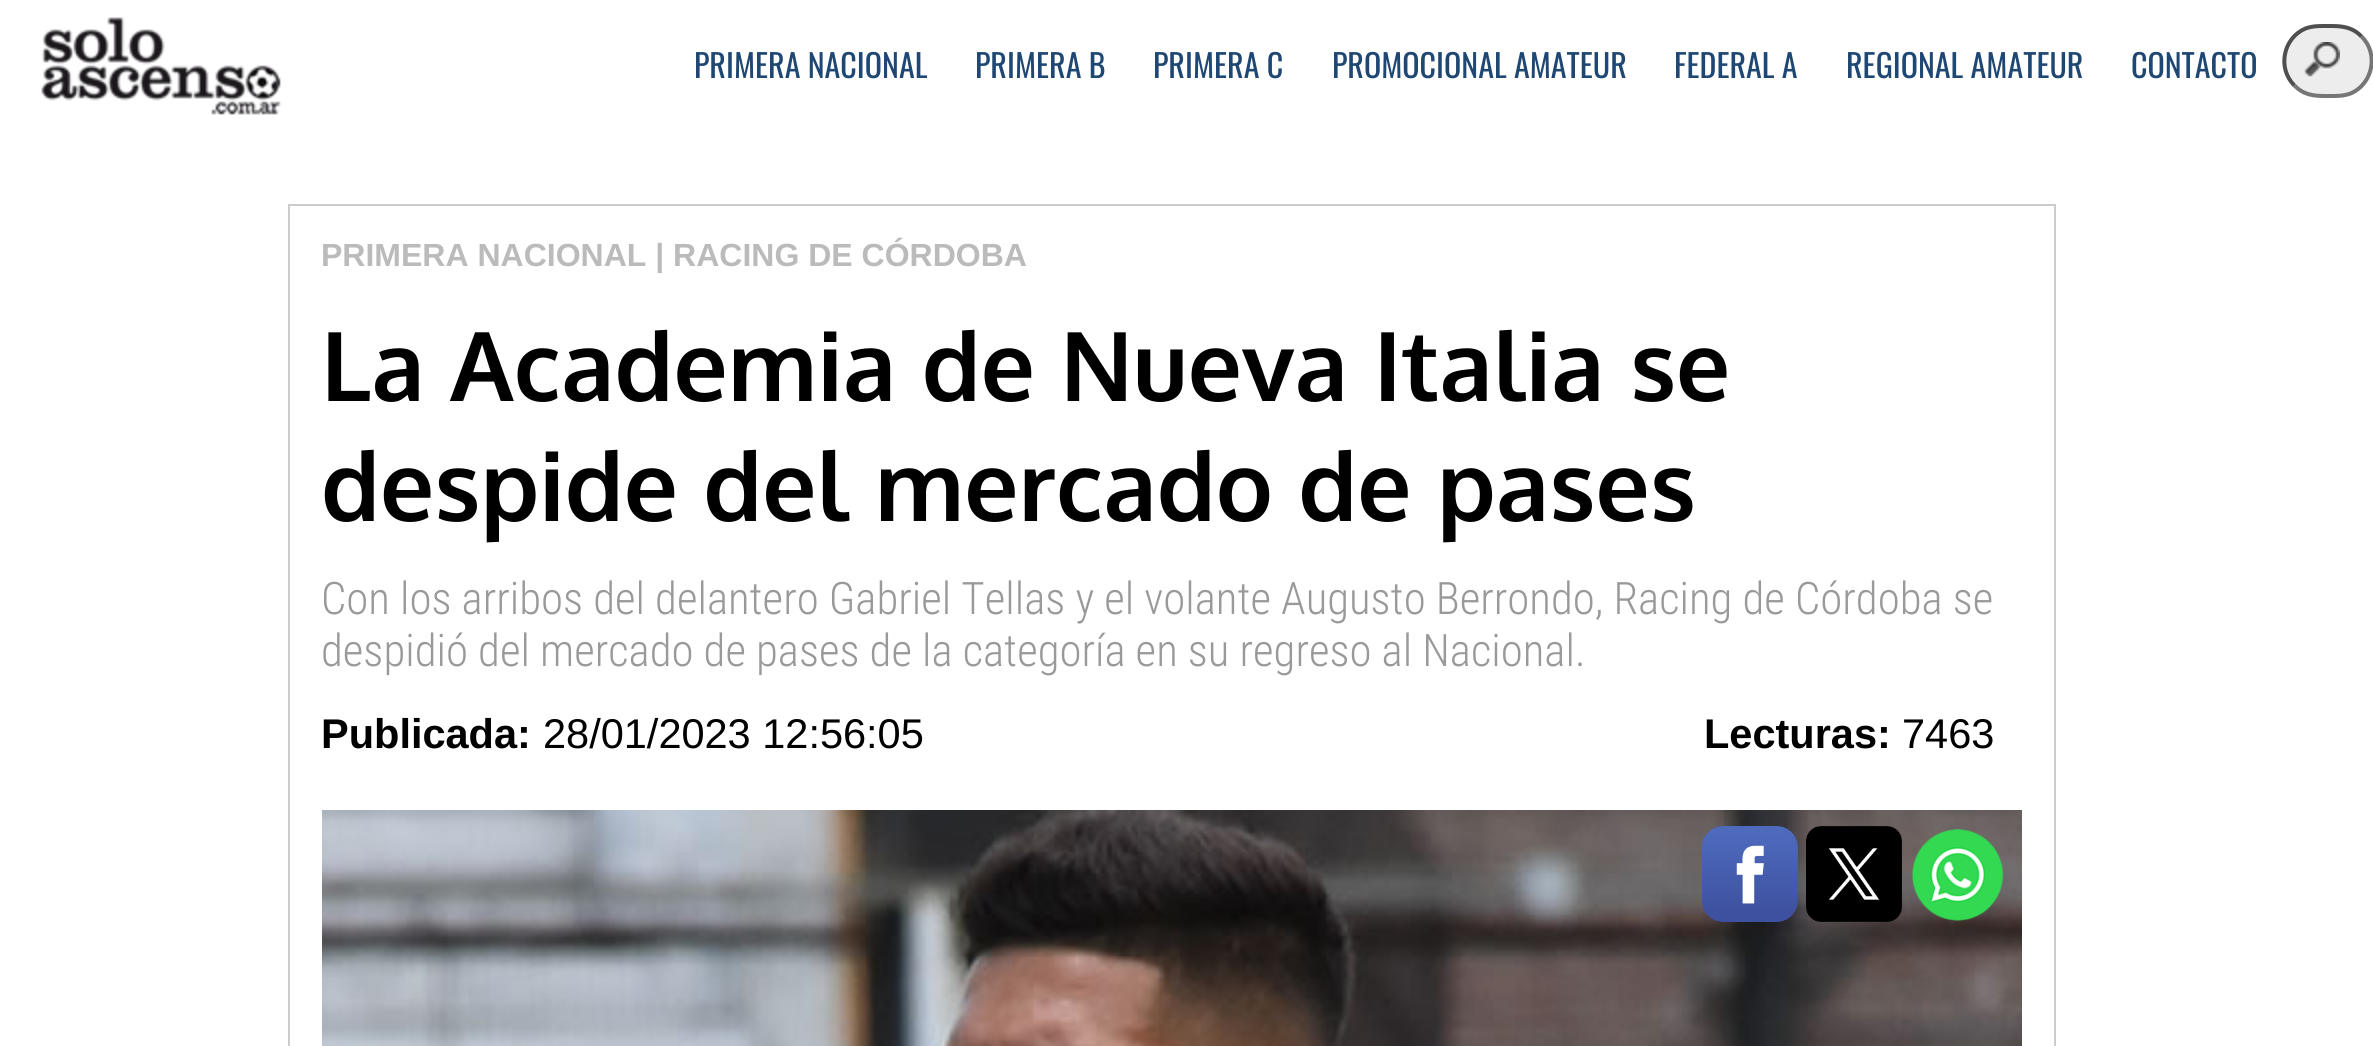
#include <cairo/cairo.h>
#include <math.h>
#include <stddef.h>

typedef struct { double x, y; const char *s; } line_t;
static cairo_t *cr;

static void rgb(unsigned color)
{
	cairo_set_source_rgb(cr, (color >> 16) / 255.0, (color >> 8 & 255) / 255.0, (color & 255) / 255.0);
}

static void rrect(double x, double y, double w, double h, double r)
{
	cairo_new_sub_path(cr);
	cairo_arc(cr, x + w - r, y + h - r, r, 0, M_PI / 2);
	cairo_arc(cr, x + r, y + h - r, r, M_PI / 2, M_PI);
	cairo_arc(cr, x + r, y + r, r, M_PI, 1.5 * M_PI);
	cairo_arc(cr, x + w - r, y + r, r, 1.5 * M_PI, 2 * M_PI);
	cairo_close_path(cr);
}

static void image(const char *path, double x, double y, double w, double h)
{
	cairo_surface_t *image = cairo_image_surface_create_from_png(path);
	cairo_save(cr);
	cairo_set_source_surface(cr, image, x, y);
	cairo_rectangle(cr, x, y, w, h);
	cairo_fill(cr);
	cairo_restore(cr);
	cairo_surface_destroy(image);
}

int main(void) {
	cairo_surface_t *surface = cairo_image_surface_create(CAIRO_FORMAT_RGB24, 2373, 1046);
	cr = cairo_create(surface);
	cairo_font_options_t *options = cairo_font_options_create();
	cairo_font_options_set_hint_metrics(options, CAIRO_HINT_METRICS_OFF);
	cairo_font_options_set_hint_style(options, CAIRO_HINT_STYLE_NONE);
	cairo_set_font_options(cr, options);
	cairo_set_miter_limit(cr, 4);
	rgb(0xffffff);
	cairo_paint(cr);
	image("img/1.png", 41, 17, 240, 98);
	rgb(0xededed);
	rrect(2282, 24, 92, 74, 37);
	cairo_fill(cr);
	image("img/2.png", 2304, 42, 36, 36);
	cairo_new_path(cr);
	cairo_move_to(cr, 2361.5, 36.5);
	cairo_curve_to(cr, 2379, 53.5, 2373, 84, 2350.5, 93.5);
	cairo_curve_to(cr, 2342.5, 96.5, 2333.5, 96, 2325, 96);
	cairo_curve_to(cr, 2313, 96, 2303, 94.5, 2294.5, 85.5);
	rgb(0x767676);
	cairo_set_line_width(cr, 4);
	cairo_stroke(cr);
	cairo_new_path(cr);
	cairo_move_to(cr, 2294.5, 85.5);
	cairo_curve_to(cr, 2277, 68.5, 2283, 38, 2305.5, 28.5);
	cairo_curve_to(cr, 2313.5, 25.5, 2322.5, 26, 2331, 26);
	cairo_curve_to(cr, 2343, 26, 2353, 27.5, 2361.5, 36.5);
	rgb(0x4f4f4f);
	cairo_stroke(cr);
	cairo_rectangle(cr, 289, 205, 1766, 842);
	rgb(0xcccccc);
	cairo_set_line_width(cr, 2);
	cairo_stroke(cr);
	image("img/3.png", 322, 810, 1700, 236);
	image("img/4.png", 1702, 826, 96, 96);
	image("img/5.png", 1806, 826, 96, 96);
	image("img/6.png", 1912, 828, 92, 94);
	cairo_select_font_face(cr, "Oswald", CAIRO_FONT_SLANT_NORMAL, CAIRO_FONT_WEIGHT_NORMAL);
	cairo_set_font_size(cr, 32);
	rgb(0x1f4773);
	{
		static const line_t items[] = {
			{694, 78, "PRIMERA NACIONAL"},
			{975, 78, "PRIMERA B"},
			{1153, 78, "PRIMERA C"},
			{1332, 78, "PROMOCIONAL AMATEUR"},
			{1674, 78, "FEDERAL A"},
			{1846, 78, "REGIONAL AMATEUR"},
			{2131, 78, "CONTACTO"},
		};
		for (size_t i = 0; i < sizeof items / sizeof *items; i++) {
			cairo_move_to(cr, items[i].x, items[i].y);
			cairo_show_text(cr, items[i].s);
		}
	}
	cairo_select_font_face(cr, "Arimo", CAIRO_FONT_SLANT_NORMAL, CAIRO_FONT_WEIGHT_BOLD);
	rgb(0xbbbbbb);
	cairo_move_to(cr, 321, 266);
	cairo_show_text(cr, "PRIMERA NACIONAL | RACING DE CÓRDOBA");
	cairo_select_font_face(cr, "Oxygen", CAIRO_FONT_SLANT_NORMAL, CAIRO_FONT_WEIGHT_BOLD);
	cairo_set_font_size(cr, 96);
	rgb(0x000000);
	cairo_move_to(cr, 321, 401);
	cairo_show_text(cr, "La Academia de Nueva Italia se");
	cairo_move_to(cr, 321, 521);
	cairo_show_text(cr, "despide del mercado de pases");
	cairo_select_font_face(cr, "Roboto Condensed Light", CAIRO_FONT_SLANT_NORMAL, CAIRO_FONT_WEIGHT_NORMAL);
	cairo_set_font_size(cr, 44.8);
	rgb(0x999999);
	cairo_move_to(cr, 321, 614);
	cairo_show_text(cr, "Con los arribos del delantero Gabriel Tellas y el volante Augusto Berrondo, Racing de Córdoba se");
	cairo_move_to(cr, 321, 666);
	cairo_show_text(cr, "despidió del mercado de pases de la categoría en su regreso al Nacional.");
	cairo_select_font_face(cr, "Arimo", CAIRO_FONT_SLANT_NORMAL, CAIRO_FONT_WEIGHT_BOLD);
	cairo_set_font_size(cr, 41.5);
	rgb(0x000000);
	cairo_move_to(cr, 321, 748);
	cairo_show_text(cr, "Publicada:");
	cairo_select_font_face(cr, "Arimo", CAIRO_FONT_SLANT_NORMAL, CAIRO_FONT_WEIGHT_NORMAL);
	cairo_move_to(cr, 543, 748);
	cairo_show_text(cr, "28/01/2023 12:56:05");
	cairo_select_font_face(cr, "Arimo", CAIRO_FONT_SLANT_NORMAL, CAIRO_FONT_WEIGHT_BOLD);
	cairo_move_to(cr, 1704, 748);
	cairo_show_text(cr, "Lecturas:");
	cairo_select_font_face(cr, "Arimo", CAIRO_FONT_SLANT_NORMAL, CAIRO_FONT_WEIGHT_NORMAL);
	cairo_move_to(cr, 1902, 748);
	cairo_show_text(cr, "7463");
	cairo_surface_write_to_png(surface, "page.png");
	cairo_font_options_destroy(options);
	cairo_destroy(cr);
	cairo_surface_destroy(surface);
	return 0;
}
